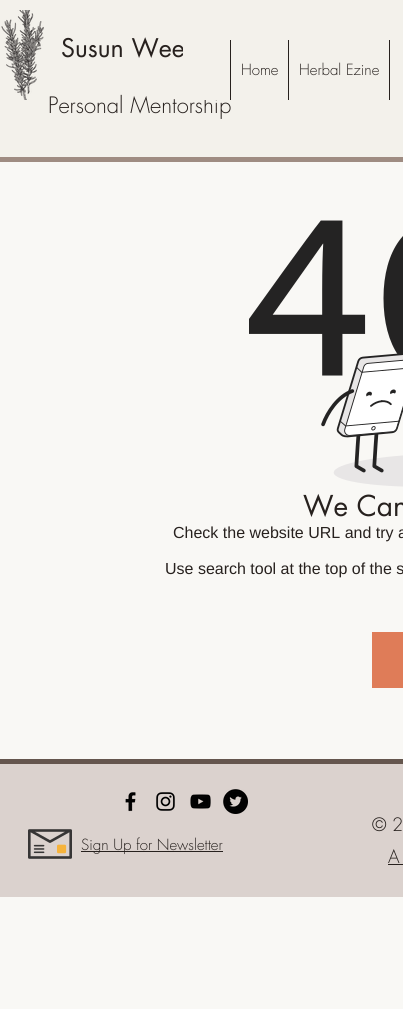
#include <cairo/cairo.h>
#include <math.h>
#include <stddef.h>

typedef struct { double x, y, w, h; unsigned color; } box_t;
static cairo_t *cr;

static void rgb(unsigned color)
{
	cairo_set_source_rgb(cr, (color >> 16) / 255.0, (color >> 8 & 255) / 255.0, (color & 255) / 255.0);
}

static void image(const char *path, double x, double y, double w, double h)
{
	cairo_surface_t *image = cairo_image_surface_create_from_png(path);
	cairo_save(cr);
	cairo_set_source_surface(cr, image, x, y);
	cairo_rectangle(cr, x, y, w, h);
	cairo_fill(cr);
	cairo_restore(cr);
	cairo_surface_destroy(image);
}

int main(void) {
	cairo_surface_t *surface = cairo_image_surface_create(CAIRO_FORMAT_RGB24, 403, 1009);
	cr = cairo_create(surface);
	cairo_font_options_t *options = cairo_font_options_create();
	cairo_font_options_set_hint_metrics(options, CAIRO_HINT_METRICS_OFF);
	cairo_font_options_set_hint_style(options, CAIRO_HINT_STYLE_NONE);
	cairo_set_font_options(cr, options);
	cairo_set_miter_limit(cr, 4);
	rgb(0xf9f8f5);
	cairo_paint(cr);
	rgb(0xf3f1eb);
	cairo_rectangle(cr, 0, 0, 403, 157);
	cairo_fill(cr);
	rgb(0x9f8c82);
	cairo_rectangle(cr, 0, 157, 403, 5);
	cairo_fill(cr);
	image("img/1.png", 1, 10, 43, 90);
	{
		static const box_t items[] = {
			{230, 40, 1, 60, 0x27211e},
			{288, 40, 1, 60, 0x27211e},
			{389, 40, 1, 60, 0x27211e},
		};
		for (size_t i = 0; i < sizeof items / sizeof *items; i++) {
			rgb(items[i].color);
			cairo_rectangle(cr, items[i].x, items[i].y, items[i].w, items[i].h);
			cairo_fill(cr);
		}
	}
	image("img/2.png", 249, 220, 154, 267);
	{
		static const box_t items[] = {
			{372, 632, 31, 56, 0xdf7c58},
			{0, 764, 403, 133, 0xdbd2ce},
			{0, 759, 403, 5, 0x65564e},
		};
		for (size_t i = 0; i < sizeof items / sizeof *items; i++) {
			rgb(items[i].color);
			cairo_rectangle(cr, items[i].x, items[i].y, items[i].w, items[i].h);
			cairo_fill(cr);
		}
	}
	image("img/3.png", 125, 792, 11, 20);
	image("img/4.png", 156, 792, 19, 19);
	image("img/5.png", 190, 794, 21, 15);
	image("img/6.png", 223, 789, 25, 25);
	image("img/7.png", 28, 829, 44, 30);
	rgb(0x27211e);
	cairo_rectangle(cr, 81, 851, 142, 1);
	cairo_fill(cr);
	cairo_rectangle(cr, 388, 864, 15, 1);
	cairo_fill(cr);
	cairo_select_font_face(cr, "futura", CAIRO_FONT_SLANT_NORMAL, CAIRO_FONT_WEIGHT_NORMAL);
	cairo_set_font_size(cr, 25);
	cairo_move_to(cr, 61, 57);
	cairo_show_text(cr, "Susun Wee");
	cairo_select_font_face(cr, "futura Light", CAIRO_FONT_SLANT_NORMAL, CAIRO_FONT_WEIGHT_NORMAL);
	cairo_set_font_size(cr, 22);
	cairo_move_to(cr, 48, 113);
	cairo_show_text(cr, "Personal Mentorship");
	rgb(0xf3f1eb);
	cairo_rectangle(cr, 183, 47, 35, 53);
	cairo_fill(cr);
	cairo_set_font_size(cr, 15);
	rgb(0x27211e);
	cairo_move_to(cr, 241, 75);
	cairo_show_text(cr, "Home");
	cairo_move_to(cr, 299, 75);
	cairo_show_text(cr, "Herbal Ezine");
	cairo_select_font_face(cr, "futura", CAIRO_FONT_SLANT_NORMAL, CAIRO_FONT_WEIGHT_NORMAL);
	cairo_set_font_size(cr, 28);
	cairo_move_to(cr, 303, 516);
	cairo_show_text(cr, "We Can");
	cairo_select_font_face(cr, "Liberation Sans", CAIRO_FONT_SLANT_NORMAL, CAIRO_FONT_WEIGHT_NORMAL);
	cairo_set_font_size(cr, 16);
	cairo_move_to(cr, 173, 538);
	cairo_show_text(cr, "Check the website URL and try a");
	cairo_move_to(cr, 165, 574);
	cairo_show_text(cr, "Use search tool at the top of the s");
	cairo_select_font_face(cr, "futura Light", CAIRO_FONT_SLANT_NORMAL, CAIRO_FONT_WEIGHT_NORMAL);
	cairo_set_font_size(cr, 15);
	cairo_move_to(cr, 81, 850);
	cairo_show_text(cr, "Sign Up for Newsletter");
	cairo_set_font_size(cr, 18);
	cairo_move_to(cr, 372, 831);
	cairo_show_text(cr, "© 2");
	cairo_move_to(cr, 388, 863);
	cairo_show_text(cr, "A");
	cairo_surface_write_to_png(surface, "page.png");
	cairo_font_options_destroy(options);
	cairo_destroy(cr);
	cairo_surface_destroy(surface);
	return 0;
}
